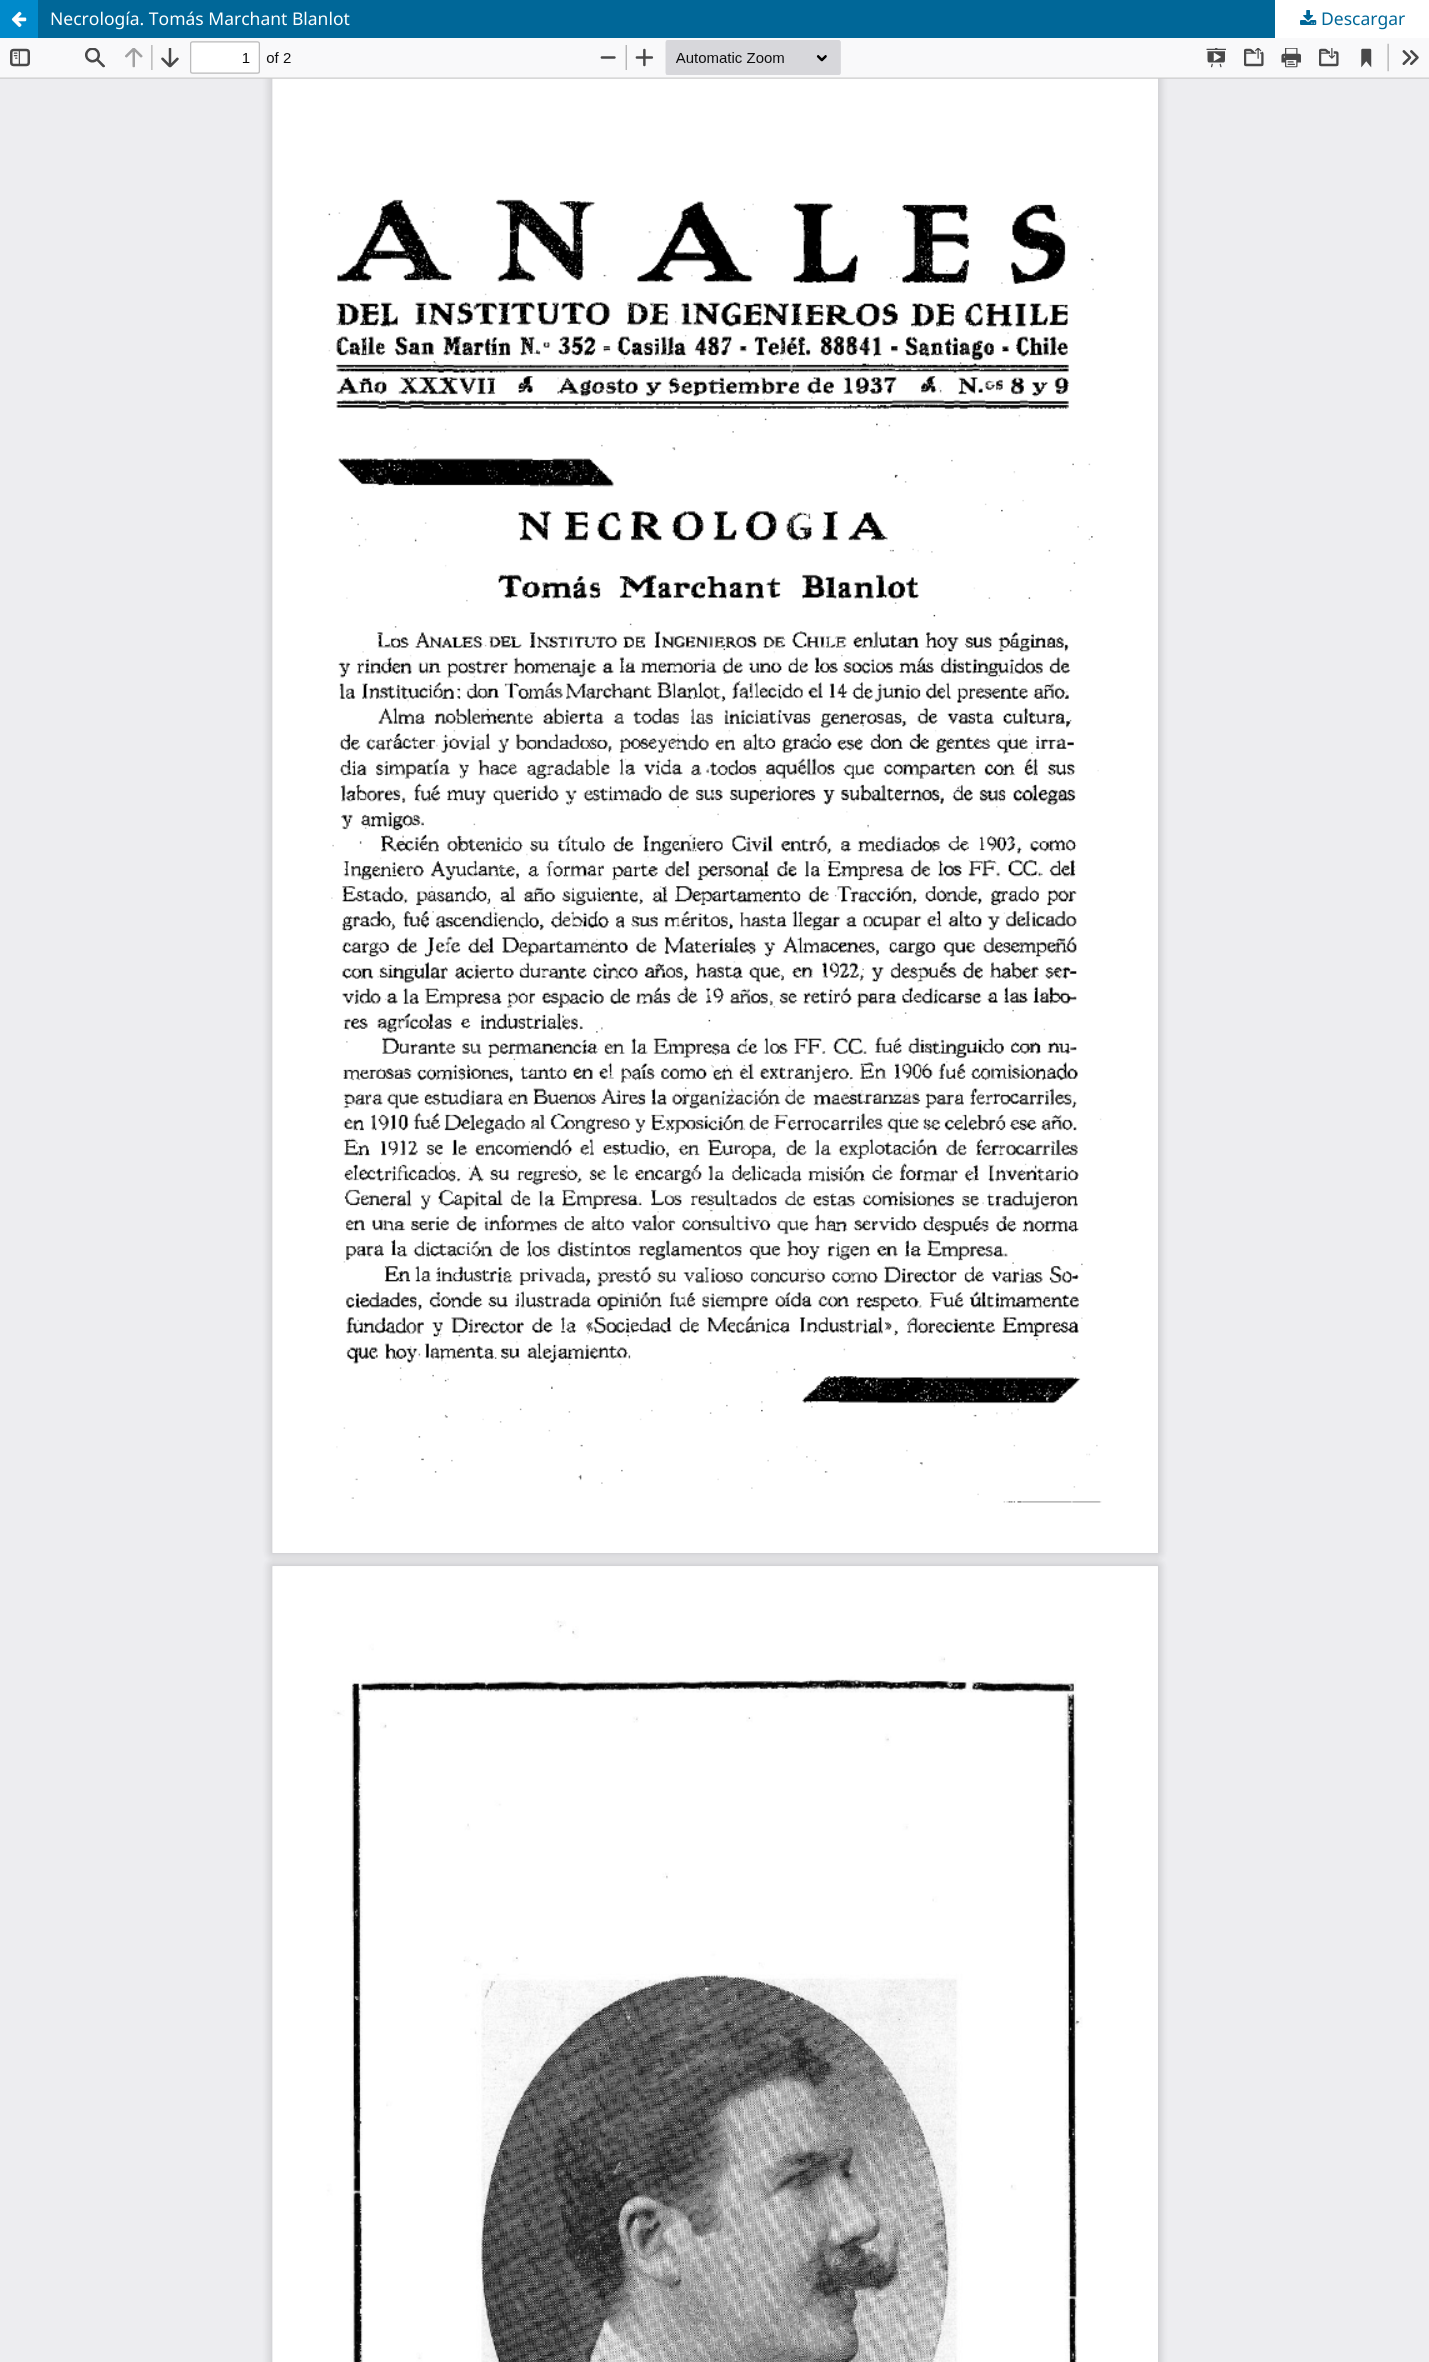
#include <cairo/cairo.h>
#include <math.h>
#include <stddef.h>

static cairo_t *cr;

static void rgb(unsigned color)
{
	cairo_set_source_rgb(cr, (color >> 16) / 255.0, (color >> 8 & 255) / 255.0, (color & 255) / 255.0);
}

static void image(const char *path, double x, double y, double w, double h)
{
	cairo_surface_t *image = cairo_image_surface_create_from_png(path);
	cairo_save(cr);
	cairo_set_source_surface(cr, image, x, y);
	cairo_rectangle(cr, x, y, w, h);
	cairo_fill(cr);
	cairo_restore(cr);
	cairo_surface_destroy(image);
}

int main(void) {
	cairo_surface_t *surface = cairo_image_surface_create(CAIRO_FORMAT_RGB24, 1429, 2362);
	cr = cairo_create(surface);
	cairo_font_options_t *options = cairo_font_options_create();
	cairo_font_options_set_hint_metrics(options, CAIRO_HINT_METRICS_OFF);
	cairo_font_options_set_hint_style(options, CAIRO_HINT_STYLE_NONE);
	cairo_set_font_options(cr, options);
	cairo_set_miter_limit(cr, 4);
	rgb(0xffffff);
	cairo_paint(cr);
	rgb(0x006798);
	cairo_rectangle(cr, 38, 0, 1237, 38);
	cairo_fill(cr);
	rgb(0x008acb);
	cairo_rectangle(cr, 0, 0, 38, 38);
	cairo_fill(cr);
	image("img/1.png", 11, 11, 16, 16);
	image("img/2.png", 1300, 10, 17, 15);
	image("img/3.png", 0, 38, 1429, 2324);
	cairo_select_font_face(cr, "Noto Sans", CAIRO_FONT_SLANT_NORMAL, CAIRO_FONT_WEIGHT_NORMAL);
	cairo_set_font_size(cr, 17.5);
	rgb(0xffffff);
	cairo_move_to(cr, 50, 25);
	cairo_show_text(cr, "Necrología. Tomás Marchant Blanlot");
	rgb(0x006798);
	cairo_move_to(cr, 1321, 25);
	cairo_show_text(cr, "Descargar");
	cairo_surface_write_to_png(surface, "page.png");
	cairo_font_options_destroy(options);
	cairo_destroy(cr);
	cairo_surface_destroy(surface);
	return 0;
}
